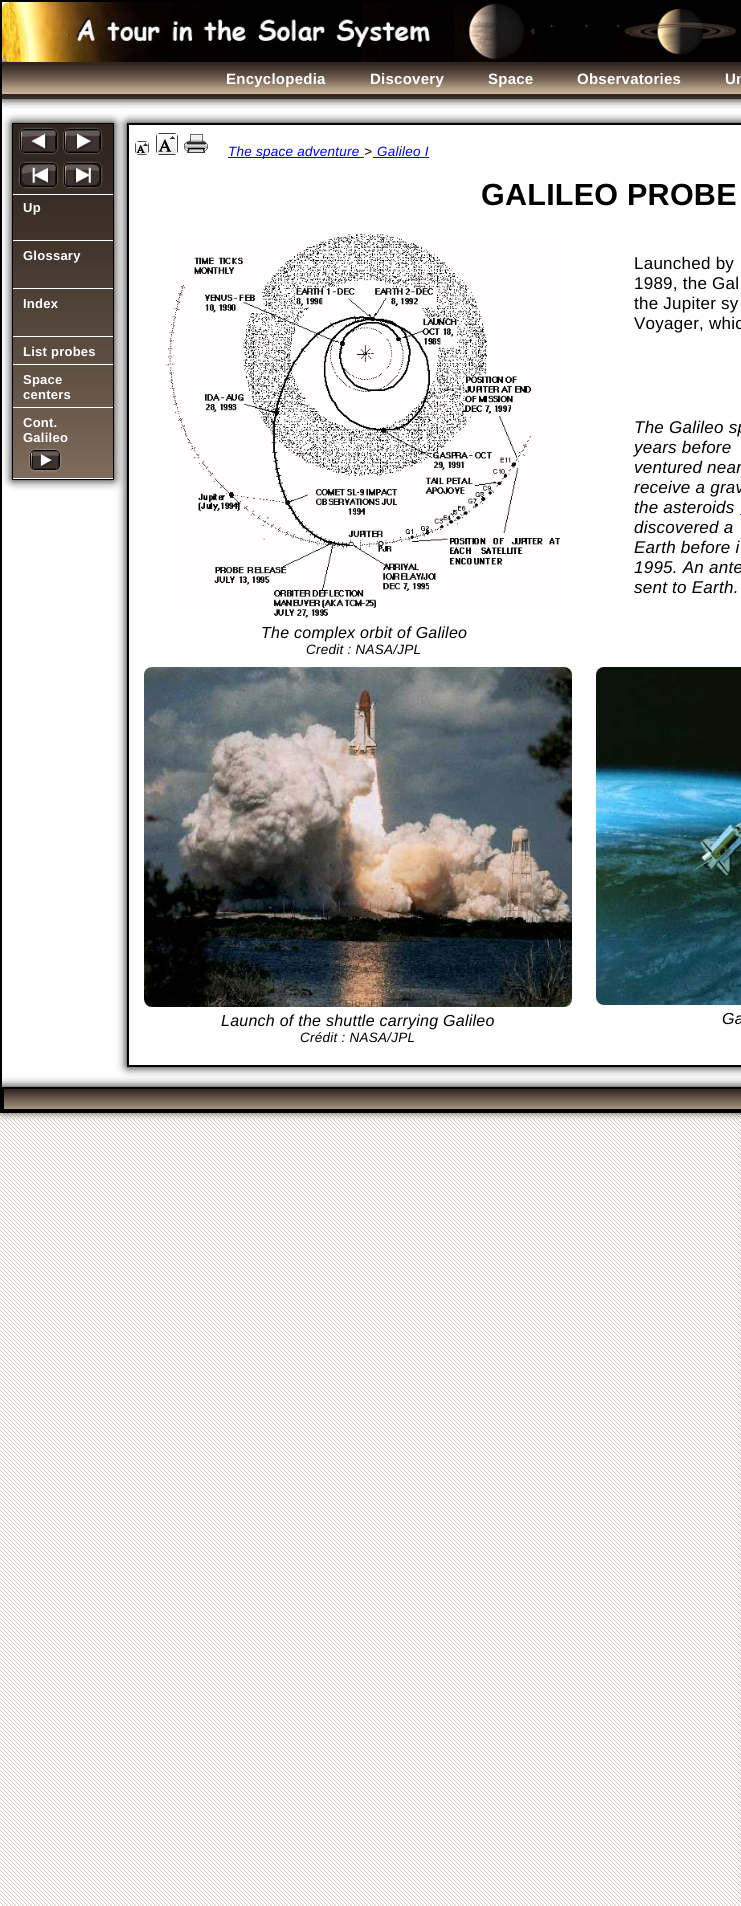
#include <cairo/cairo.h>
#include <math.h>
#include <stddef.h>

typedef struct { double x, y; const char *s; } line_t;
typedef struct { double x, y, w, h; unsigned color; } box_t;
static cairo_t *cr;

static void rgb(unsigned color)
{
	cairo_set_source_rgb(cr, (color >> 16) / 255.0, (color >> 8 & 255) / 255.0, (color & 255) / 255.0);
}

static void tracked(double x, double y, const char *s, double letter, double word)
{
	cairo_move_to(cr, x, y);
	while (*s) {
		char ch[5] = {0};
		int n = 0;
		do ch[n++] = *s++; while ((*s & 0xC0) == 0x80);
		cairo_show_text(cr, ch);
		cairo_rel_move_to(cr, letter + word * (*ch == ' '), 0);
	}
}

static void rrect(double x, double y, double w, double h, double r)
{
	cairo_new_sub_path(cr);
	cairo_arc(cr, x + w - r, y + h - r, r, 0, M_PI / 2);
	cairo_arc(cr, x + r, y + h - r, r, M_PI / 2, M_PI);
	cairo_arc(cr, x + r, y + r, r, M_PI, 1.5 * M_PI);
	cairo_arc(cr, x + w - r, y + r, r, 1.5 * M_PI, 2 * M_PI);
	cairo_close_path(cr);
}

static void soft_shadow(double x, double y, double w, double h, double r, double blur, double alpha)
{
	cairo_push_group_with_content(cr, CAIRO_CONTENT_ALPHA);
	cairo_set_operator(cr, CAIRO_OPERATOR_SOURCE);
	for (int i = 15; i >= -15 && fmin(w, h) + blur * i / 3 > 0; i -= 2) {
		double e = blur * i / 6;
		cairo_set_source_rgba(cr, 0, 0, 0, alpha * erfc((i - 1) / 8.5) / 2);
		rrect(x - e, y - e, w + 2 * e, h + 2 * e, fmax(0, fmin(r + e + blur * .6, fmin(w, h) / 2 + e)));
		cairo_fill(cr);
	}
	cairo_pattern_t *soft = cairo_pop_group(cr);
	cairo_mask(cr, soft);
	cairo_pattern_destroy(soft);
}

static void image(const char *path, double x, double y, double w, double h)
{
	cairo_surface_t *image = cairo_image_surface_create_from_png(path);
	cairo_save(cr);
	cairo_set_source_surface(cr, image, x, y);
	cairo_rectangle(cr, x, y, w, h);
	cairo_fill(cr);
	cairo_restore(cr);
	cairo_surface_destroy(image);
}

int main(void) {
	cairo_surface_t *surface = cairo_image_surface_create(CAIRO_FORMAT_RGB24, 741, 1906);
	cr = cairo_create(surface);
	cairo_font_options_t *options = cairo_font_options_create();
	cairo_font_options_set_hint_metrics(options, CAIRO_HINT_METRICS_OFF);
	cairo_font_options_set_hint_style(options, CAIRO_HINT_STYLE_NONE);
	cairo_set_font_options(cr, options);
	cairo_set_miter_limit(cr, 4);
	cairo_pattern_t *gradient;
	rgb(0xffffff);
	cairo_paint(cr);
	image("img/1.png", 0, 1113, 741, 793);
	cairo_rectangle(cr, 1, 1, 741, 1111);
	rgb(0x000000);
	cairo_stroke(cr);
	rgb(0x000000);
	soft_shadow(2, 62, 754, 37, 0, 5, 1);
	image("img/2.png", 2, 2, 739, 60);
	image("img/3.png", 2, 62, 739, 37);
	cairo_save(cr);
	cairo_set_fill_rule(cr, CAIRO_FILL_RULE_EVEN_ODD);
	cairo_new_path(cr);
	cairo_move_to(cr, 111, 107);
	cairo_line_to(cr, 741, 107);
	cairo_line_to(cr, 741, 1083);
	cairo_line_to(cr, 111, 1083);
	cairo_close_path(cr);
	cairo_move_to(cr, 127, 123);
	cairo_line_to(cr, 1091, 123);
	cairo_line_to(cr, 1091, 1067);
	cairo_line_to(cr, 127, 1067);
	cairo_close_path(cr);
	cairo_clip(cr);
	soft_shadow(127, 123, 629, 944, 0, 5, 1);
	cairo_restore(cr);
	cairo_rectangle(cr, 128, 124, 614, 942);
	rgb(0x000000);
	cairo_stroke(cr);
	rgb(0x000000);
	soft_shadow(12, 123, 102, 357, 0, 5, 1);
	image("img/4.png", 13, 124, 100, 354);
	cairo_rectangle(cr, 12.5, 123.5, 101, 356);
	rgb(0x000000);
	cairo_set_line_width(cr, 1);
	cairo_stroke(cr);
	rgb(0xffffff);
	soft_shadow(20, 129, 37, 24, 5, 1, 0.5);
	soft_shadow(64, 129, 37, 24, 5, 1, 0.5);
	rrect(20.5, 129.5, 36, 23, 4.5);
	rgb(0x000000);
	cairo_stroke(cr);
	rrect(64.5, 129.5, 36, 23, 4.5);
	cairo_stroke(cr);
	image("img/5.png", 21, 130, 35, 22);
	image("img/6.png", 65, 130, 35, 22);
	cairo_save(cr);
	cairo_set_fill_rule(cr, CAIRO_FILL_RULE_EVEN_ODD);
	cairo_new_path(cr);
	cairo_move_to(cr, 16, 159);
	cairo_line_to(cr, 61, 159);
	cairo_line_to(cr, 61, 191);
	cairo_line_to(cr, 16, 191);
	cairo_close_path(cr);
	cairo_move_to(cr, 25, 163);
	cairo_line_to(cr, 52, 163);
	cairo_curve_to(cr, 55, 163, 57, 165, 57, 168);
	cairo_line_to(cr, 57, 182);
	cairo_curve_to(cr, 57, 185, 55, 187, 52, 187);
	cairo_line_to(cr, 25, 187);
	cairo_curve_to(cr, 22, 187, 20, 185, 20, 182);
	cairo_line_to(cr, 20, 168);
	cairo_curve_to(cr, 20, 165, 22, 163, 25, 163);
	cairo_close_path(cr);
	cairo_clip(cr);
	rgb(0xffffff);
	soft_shadow(20, 163, 37, 24, 5, 1, 0.5);
	cairo_restore(cr);
	cairo_save(cr);
	cairo_set_fill_rule(cr, CAIRO_FILL_RULE_EVEN_ODD);
	cairo_new_path(cr);
	cairo_move_to(cr, 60, 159);
	cairo_line_to(cr, 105, 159);
	cairo_line_to(cr, 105, 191);
	cairo_line_to(cr, 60, 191);
	cairo_close_path(cr);
	cairo_move_to(cr, 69, 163);
	cairo_line_to(cr, 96, 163);
	cairo_curve_to(cr, 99, 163, 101, 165, 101, 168);
	cairo_line_to(cr, 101, 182);
	cairo_curve_to(cr, 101, 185, 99, 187, 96, 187);
	cairo_line_to(cr, 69, 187);
	cairo_curve_to(cr, 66, 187, 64, 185, 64, 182);
	cairo_line_to(cr, 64, 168);
	cairo_curve_to(cr, 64, 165, 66, 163, 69, 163);
	cairo_close_path(cr);
	cairo_clip(cr);
	rgb(0xffffff);
	soft_shadow(64, 163, 37, 24, 5, 1, 0.5);
	cairo_restore(cr);
	rrect(20.5, 163.5, 36, 23, 4.5);
	cairo_stroke(cr);
	rrect(64.5, 163.5, 36, 23, 4.5);
	cairo_stroke(cr);
	image("img/7.png", 21, 164, 35, 22);
	image("img/8.png", 65, 164, 35, 22);
	{
		static const box_t items[] = {
			{13, 194, 100, 1, 0xffffff},
			{13, 240, 100, 1, 0xffffff},
			{13, 288, 100, 1, 0xffffff},
			{13, 336, 100, 1, 0xffffff},
			{13, 364, 100, 1, 0xffffff},
			{13, 407, 100, 1, 0xffffff},
			{13, 478, 100, 1, 0xffffff},
		};
		for (size_t i = 0; i < sizeof items / sizeof *items; i++) {
			rgb(items[i].color);
			cairo_rectangle(cr, items[i].x, items[i].y, items[i].w, items[i].h);
			cairo_fill(cr);
		}
	}
	rgb(0xffffff);
	soft_shadow(30, 450, 30, 20, 5, 1, 0.5);
	rrect(30.5, 450.5, 29, 19, 4.5);
	rgb(0x000000);
	cairo_stroke(cr);
	image("img/9.png", 31, 451, 28, 18);
	image("img/10.png", 135, 141, 14, 14);
	image("img/11.png", 156, 133, 22, 22);
	image("img/12.png", 184, 134, 24, 19);
	{
		static const box_t items[] = {
			{228, 157, 136, 1, 0x0000ee},
			{373, 157, 56, 1, 0x0000ee},
			{740, 514, 1, 1, 0x0000ee},
		};
		for (size_t i = 0; i < sizeof items / sizeof *items; i++) {
			rgb(items[i].color);
			cairo_rectangle(cr, items[i].x, items[i].y, items[i].w, items[i].h);
			cairo_fill(cr);
		}
	}
	image("img/13.png", 166, 233, 394, 385);
	image("img/14.png", 144, 667, 428, 340);
	image("img/15.png", 596, 667, 145, 338);
	rgb(0x000000);
	soft_shadow(2, 1087, 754, 24, 0, 5, 1);
	gradient = cairo_pattern_create_linear(552, 1089, 552, 1109);
	cairo_pattern_add_color_stop_rgba(gradient, 0, 0.184, 0.141, 0.118, 1);
	cairo_pattern_add_color_stop_rgba(gradient, 1, 0.647, 0.569, 0.49, 1);
	cairo_set_source(cr, gradient);
	cairo_pattern_destroy(gradient);
	cairo_rectangle(cr, 4, 1089, 737, 20);
	cairo_fill(cr);
	cairo_rectangle(cr, 3, 1088, 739, 22);
	rgb(0x000000);
	cairo_set_line_width(cr, 2);
	cairo_stroke(cr);
	cairo_select_font_face(cr, "Liberation Sans", CAIRO_FONT_SLANT_NORMAL, CAIRO_FONT_WEIGHT_BOLD);
	cairo_set_font_size(cr, 15);
	rgb(0xffffff);
	{
		static const line_t items[] = {
			{226, 84, "Encyclopedia"},
			{370, 84, "Discovery"},
			{488, 84, "Space"},
			{577, 84, "Observatories"},
			{725, 84, "Un"},
		};
		for (size_t i = 0; i < sizeof items / sizeof *items; i++) {
			tracked(items[i].x, items[i].y, items[i].s, 0.25, 0);
		}
	}
	cairo_set_font_size(cr, 13);
	{
		static const line_t items[] = {
			{23, 212, "Up"},
			{23, 260, "Glossary"},
			{23, 308, "Index"},
			{23, 356, "List probes"},
			{23, 384, "Space"},
			{23, 399, "centers"},
			{23, 427, "Cont."},
			{23, 442, "Galileo"},
		};
		for (size_t i = 0; i < sizeof items / sizeof *items; i++) {
			tracked(items[i].x, items[i].y, items[i].s, 0.25, 0);
		}
	}
	cairo_select_font_face(cr, "Liberation Sans", CAIRO_FONT_SLANT_ITALIC, CAIRO_FONT_WEIGHT_NORMAL);
	cairo_set_font_size(cr, 13.5);
	rgb(0x0000ee);
	tracked(228, 156, "The space adventure", 0.25, 0);
	rgb(0x000000);
	tracked(364, 156, ">", 0.25, 0);
	rgb(0x0000ee);
	tracked(377, 156, "Galileo I", 0.25, 0);
	cairo_select_font_face(cr, "Liberation Sans", CAIRO_FONT_SLANT_NORMAL, CAIRO_FONT_WEIGHT_BOLD);
	cairo_set_font_size(cr, 30.5);
	rgb(0x000000);
	tracked(481, 205, "GALILEO PROBE", 0.25, 0);
	cairo_select_font_face(cr, "Liberation Sans", CAIRO_FONT_SLANT_NORMAL, CAIRO_FONT_WEIGHT_NORMAL);
	cairo_set_font_size(cr, 17);
	{
		static const line_t items[] = {
			{634, 269, "Launched by"},
			{634, 289, "1989, the Gal"},
			{634, 309, "the Jupiter sy"},
			{634, 329, "Voyager, whic"},
		};
		for (size_t i = 0; i < sizeof items / sizeof *items; i++) {
			tracked(items[i].x, items[i].y, items[i].s, 0.25, 0);
		}
	}
	cairo_select_font_face(cr, "Liberation Sans", CAIRO_FONT_SLANT_ITALIC, CAIRO_FONT_WEIGHT_NORMAL);
	{
		static const line_t items[] = {
			{634, 433, "The Galileo sp"},
			{634, 453, "years before"},
			{634, 473, "ventured near"},
			{634, 493, "receive a grav"},
			{634, 513, "the asteroids"},
			{634, 533, "discovered a"},
			{634, 553, "Earth before i"},
			{634, 573, "1995. An ante"},
			{634, 593, "sent to Earth."},
		};
		for (size_t i = 0; i < sizeof items / sizeof *items; i++) {
			tracked(items[i].x, items[i].y, items[i].s, 0.25, 0);
		}
	}
	cairo_set_font_size(cr, 16);
	tracked(261, 638, "The complex orbit of Galileo", 0.25, 0);
	cairo_set_font_size(cr, 13.5);
	tracked(306, 654, "Credit : NASA/JPL", 0.25, 0);
	cairo_set_font_size(cr, 16);
	tracked(221, 1026, "Launch of the shuttle carrying Galileo", 0.25, 0);
	cairo_set_font_size(cr, 13.5);
	tracked(300, 1042, "Crédit : NASA/JPL", 0.25, 0);
	cairo_set_font_size(cr, 16);
	tracked(722, 1024, "Ga", 0.25, 0);
	cairo_surface_write_to_png(surface, "page.png");
	cairo_font_options_destroy(options);
	cairo_destroy(cr);
	cairo_surface_destroy(surface);
	return 0;
}
